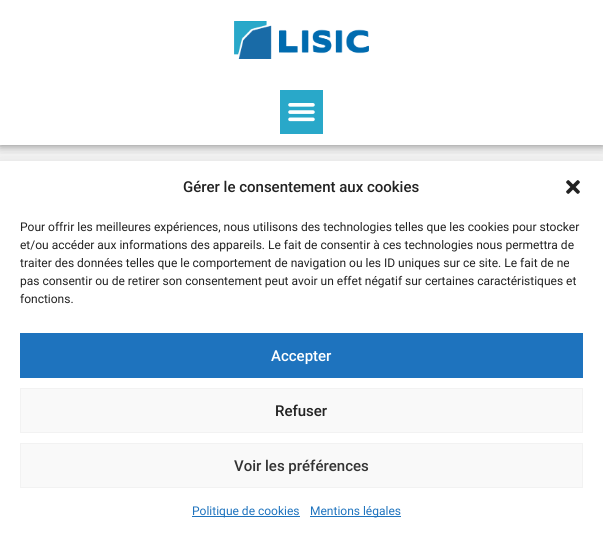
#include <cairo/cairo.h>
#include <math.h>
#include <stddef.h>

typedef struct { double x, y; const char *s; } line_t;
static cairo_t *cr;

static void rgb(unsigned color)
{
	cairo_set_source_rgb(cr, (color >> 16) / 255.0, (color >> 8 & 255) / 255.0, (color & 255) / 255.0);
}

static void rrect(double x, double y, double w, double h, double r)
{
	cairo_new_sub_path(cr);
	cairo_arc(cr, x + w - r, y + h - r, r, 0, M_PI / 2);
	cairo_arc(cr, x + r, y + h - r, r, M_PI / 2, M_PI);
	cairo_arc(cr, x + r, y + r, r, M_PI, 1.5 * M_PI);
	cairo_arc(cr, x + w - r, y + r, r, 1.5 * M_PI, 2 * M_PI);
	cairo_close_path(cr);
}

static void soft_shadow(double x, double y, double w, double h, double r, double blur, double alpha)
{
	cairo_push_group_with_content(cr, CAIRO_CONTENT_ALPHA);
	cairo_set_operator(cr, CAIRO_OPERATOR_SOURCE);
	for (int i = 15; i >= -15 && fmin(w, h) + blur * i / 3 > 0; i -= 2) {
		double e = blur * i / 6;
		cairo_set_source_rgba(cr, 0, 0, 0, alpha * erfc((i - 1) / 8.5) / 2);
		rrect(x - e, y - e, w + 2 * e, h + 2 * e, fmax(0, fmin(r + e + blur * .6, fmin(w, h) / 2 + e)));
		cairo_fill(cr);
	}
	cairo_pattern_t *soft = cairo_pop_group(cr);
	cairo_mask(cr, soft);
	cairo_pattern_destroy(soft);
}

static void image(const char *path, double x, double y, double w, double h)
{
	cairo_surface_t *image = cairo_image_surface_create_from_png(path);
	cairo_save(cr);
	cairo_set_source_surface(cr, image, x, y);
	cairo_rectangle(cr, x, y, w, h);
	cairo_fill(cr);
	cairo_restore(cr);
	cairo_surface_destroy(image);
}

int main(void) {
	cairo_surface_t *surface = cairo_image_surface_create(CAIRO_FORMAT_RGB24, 603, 537);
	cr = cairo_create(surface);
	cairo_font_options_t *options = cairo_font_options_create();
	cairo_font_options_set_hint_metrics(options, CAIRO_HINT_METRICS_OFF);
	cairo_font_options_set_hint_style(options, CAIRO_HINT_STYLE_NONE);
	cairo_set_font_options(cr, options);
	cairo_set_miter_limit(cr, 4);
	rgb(0xffffff);
	cairo_paint(cr);
	rgb(0xf2f2f2);
	cairo_rectangle(cr, 0, 145, 603, 16);
	cairo_fill(cr);
	cairo_save(cr);
	cairo_rectangle(cr, 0, 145, 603, 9);
	cairo_clip(cr);
	rgb(0x000000);
	soft_shadow(0, 0, 603, 145, 0, 5, 0.5);
	cairo_restore(cr);
	image("img/1.png", 234, 21, 135, 38);
	rgb(0x29a8c9);
	cairo_rectangle(cr, 280, 90, 43, 44);
	cairo_fill(cr);
	image("img/2.png", 288, 103, 27, 19);
	rgb(0x000000);
	soft_shadow(0, 171, 603, 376, 0, 10, 0.19);
	rgb(0xffffff);
	cairo_rectangle(cr, 0, 161, 603, 376);
	cairo_fill(cr);
	image("img/3.png", 566, 180, 14, 14);
	rgb(0x1e73be);
	cairo_rectangle(cr, 20, 333, 563, 45);
	cairo_fill(cr);
	rgb(0xf9f9f9);
	cairo_rectangle(cr, 20.5, 388.5, 562, 44);
	cairo_fill_preserve(cr);
	rgb(0xf2f2f2);
	cairo_set_line_width(cr, 1);
	cairo_stroke(cr);
	rgb(0xf9f9f9);
	cairo_rectangle(cr, 20.5, 443.5, 562, 44);
	cairo_fill_preserve(cr);
	rgb(0xf2f2f2);
	cairo_stroke(cr);
	rgb(0x1e73be);
	cairo_rectangle(cr, 192, 516, 108, 1);
	cairo_fill(cr);
	cairo_rectangle(cr, 310, 516, 91, 1);
	cairo_fill(cr);
	cairo_select_font_face(cr, "Roboto Medium", CAIRO_FONT_SLANT_NORMAL, CAIRO_FONT_WEIGHT_NORMAL);
	cairo_set_font_size(cr, 15);
	rgb(0x222222);
	cairo_move_to(cr, 183, 192);
	cairo_show_text(cr, "Gérer le consentement aux cookies");
	cairo_select_font_face(cr, "Roboto", CAIRO_FONT_SLANT_NORMAL, CAIRO_FONT_WEIGHT_NORMAL);
	cairo_set_font_size(cr, 12);
	{
		static const line_t items[] = {
			{20, 231, "Pour offrir les meilleures expériences, nous utilisons des technologies telles que les cookies pour stocker"},
			{20, 249, "et/ou accéder aux informations des appareils. Le fait de consentir à ces technologies nous permettra de"},
			{20, 267, "traiter des données telles que le comportement de navigation ou les ID uniques sur ce site. Le fait de ne"},
			{20, 285, "pas consentir ou de retirer son consentement peut avoir un effet négatif sur certaines caractéristiques et"},
			{20, 303, "fonctions."},
		};
		for (size_t i = 0; i < sizeof items / sizeof *items; i++) {
			cairo_move_to(cr, items[i].x, items[i].y);
			cairo_show_text(cr, items[i].s);
		}
	}
	cairo_select_font_face(cr, "Roboto Medium", CAIRO_FONT_SLANT_NORMAL, CAIRO_FONT_WEIGHT_NORMAL);
	cairo_set_font_size(cr, 15);
	rgb(0xffffff);
	cairo_move_to(cr, 271, 361);
	cairo_show_text(cr, "Accepter");
	rgb(0x222222);
	cairo_move_to(cr, 275, 416);
	cairo_show_text(cr, "Refuser");
	rgb(0x333333);
	cairo_move_to(cr, 234, 471);
	cairo_show_text(cr, "Voir les préférences");
	cairo_select_font_face(cr, "Roboto", CAIRO_FONT_SLANT_NORMAL, CAIRO_FONT_WEIGHT_NORMAL);
	cairo_set_font_size(cr, 12);
	rgb(0x1e73be);
	cairo_move_to(cr, 192, 515);
	cairo_show_text(cr, "Politique de cookies");
	cairo_move_to(cr, 310, 515);
	cairo_show_text(cr, "Mentions légales");
	cairo_surface_write_to_png(surface, "page.png");
	cairo_font_options_destroy(options);
	cairo_destroy(cr);
	cairo_surface_destroy(surface);
	return 0;
}
